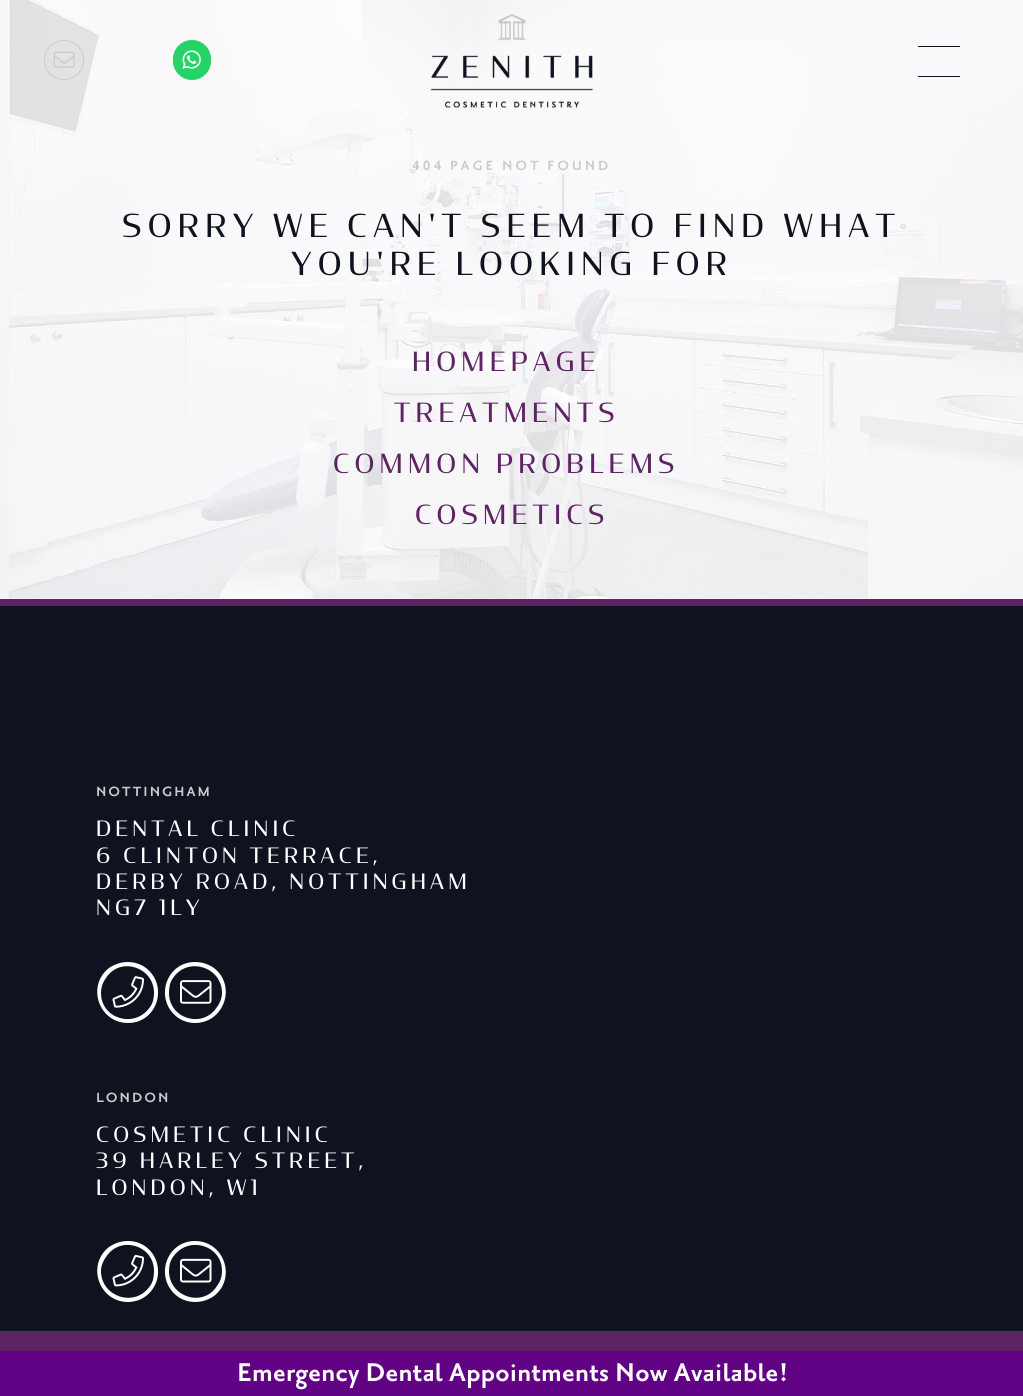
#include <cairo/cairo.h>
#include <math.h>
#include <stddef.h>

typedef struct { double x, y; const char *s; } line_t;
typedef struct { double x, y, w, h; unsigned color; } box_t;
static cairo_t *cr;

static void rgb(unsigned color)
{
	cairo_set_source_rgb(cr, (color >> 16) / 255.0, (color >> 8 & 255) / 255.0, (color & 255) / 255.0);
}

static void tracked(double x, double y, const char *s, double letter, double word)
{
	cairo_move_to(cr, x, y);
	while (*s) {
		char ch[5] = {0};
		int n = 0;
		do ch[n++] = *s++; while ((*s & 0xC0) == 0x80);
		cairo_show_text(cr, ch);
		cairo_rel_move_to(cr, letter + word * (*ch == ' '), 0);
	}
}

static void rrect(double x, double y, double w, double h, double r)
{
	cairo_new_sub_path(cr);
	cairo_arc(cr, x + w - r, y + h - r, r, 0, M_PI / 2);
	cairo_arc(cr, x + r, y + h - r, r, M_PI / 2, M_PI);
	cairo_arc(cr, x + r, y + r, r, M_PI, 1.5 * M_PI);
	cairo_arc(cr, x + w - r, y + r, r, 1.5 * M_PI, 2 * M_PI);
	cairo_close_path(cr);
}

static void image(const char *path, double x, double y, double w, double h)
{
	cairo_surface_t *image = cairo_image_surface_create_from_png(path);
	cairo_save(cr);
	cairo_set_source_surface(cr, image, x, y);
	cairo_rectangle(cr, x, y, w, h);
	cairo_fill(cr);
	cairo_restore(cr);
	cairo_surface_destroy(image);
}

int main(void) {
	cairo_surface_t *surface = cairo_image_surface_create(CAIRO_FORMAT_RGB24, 1023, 1396);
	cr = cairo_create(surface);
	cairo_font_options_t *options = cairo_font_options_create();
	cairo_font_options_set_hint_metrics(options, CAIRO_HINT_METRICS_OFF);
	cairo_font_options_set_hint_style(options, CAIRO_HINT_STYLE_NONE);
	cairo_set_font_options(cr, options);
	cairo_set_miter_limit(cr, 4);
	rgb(0xffffff);
	cairo_paint(cr);
	image("img/4.png", 0, 0, 1023, 599);
	cairo_arc(cr, 64, 60, 19.5, 0, 2 * M_PI);
	rgb(0xcbcbcb);
	cairo_set_line_width(cr, 1);
	cairo_stroke(cr);
	image("img/1.png", 53, 51, 22, 17);
	rgb(0x25d366);
	rrect(173.5, 40.5, 37, 39, 18.5);
	cairo_fill_preserve(cr);
	cairo_stroke(cr);
	image("img/2.png", 182, 50, 19, 19);
	image("img/3.png", 431, 14, 162, 94);
	{
		static const box_t items[] = {
			{918, 46, 42, 1, 0x0f121f},
			{918, 76, 42, 1, 0x0f121f},
			{0, 606, 1023, 725, 0x0f121f},
			{0, 599, 1023, 7, 0x5e2363},
		};
		for (size_t i = 0; i < sizeof items / sizeof *items; i++) {
			rgb(items[i].color);
			cairo_rectangle(cr, items[i].x, items[i].y, items[i].w, items[i].h);
			cairo_fill(cr);
		}
	}
	rgb(0xffffff);
	cairo_new_path(cr);
	cairo_move_to(cr, 128, 962);
	cairo_curve_to(cr, 121, 962, 115, 964, 109, 968);
	cairo_curve_to(cr, 86, 986, 99, 1023, 128, 1023);
	cairo_curve_to(cr, 157, 1023, 169, 986, 146, 968);
	cairo_curve_to(cr, 141, 964, 134, 962, 128, 962);
	cairo_close_path(cr);
	cairo_move_to(cr, 154, 993);
	cairo_curve_to(cr, 154, 998, 153, 1003, 150, 1007);
	cairo_curve_to(cr, 135, 1029, 101, 1019, 101, 993);
	cairo_curve_to(cr, 101, 987, 103, 982, 106, 978);
	cairo_curve_to(cr, 120, 956, 154, 967, 154, 993);
	cairo_close_path(cr);
	cairo_fill(cr);
	image("img/5.png", 112, 976, 32, 32);
	cairo_new_path(cr);
	cairo_move_to(cr, 195, 962);
	cairo_curve_to(cr, 166, 962, 154, 999, 177, 1017);
	cairo_curve_to(cr, 182, 1021, 189, 1023, 195, 1023);
	cairo_curve_to(cr, 224, 1023, 237, 986, 214, 968);
	cairo_curve_to(cr, 208, 964, 202, 962, 195, 962);
	cairo_close_path(cr);
	cairo_move_to(cr, 222, 993);
	cairo_curve_to(cr, 222, 998, 220, 1003, 217, 1007);
	cairo_curve_to(cr, 203, 1029, 169, 1019, 169, 993);
	cairo_curve_to(cr, 169, 987, 170, 982, 173, 978);
	cairo_curve_to(cr, 188, 956, 222, 967, 222, 993);
	cairo_close_path(cr);
	cairo_fill(cr);
	image("img/6.png", 180, 980, 32, 24);
	cairo_new_path(cr);
	cairo_move_to(cr, 128, 1241);
	cairo_curve_to(cr, 121, 1241, 115, 1243, 109, 1247);
	cairo_curve_to(cr, 86, 1265, 99, 1302, 128, 1302);
	cairo_curve_to(cr, 134, 1302, 141, 1300, 146, 1296);
	cairo_curve_to(cr, 169, 1278, 157, 1241, 128, 1241);
	cairo_close_path(cr);
	cairo_move_to(cr, 154, 1271);
	cairo_curve_to(cr, 154, 1277, 153, 1282, 150, 1286);
	cairo_curve_to(cr, 135, 1308, 101, 1297, 101, 1271);
	cairo_curve_to(cr, 101, 1266, 103, 1261, 106, 1257);
	cairo_curve_to(cr, 120, 1235, 154, 1245, 154, 1271);
	cairo_close_path(cr);
	cairo_fill(cr);
	image("img/7.png", 112, 1254, 32, 33);
	cairo_new_path(cr);
	cairo_move_to(cr, 195, 1241);
	cairo_curve_to(cr, 166, 1241, 154, 1278, 177, 1296);
	cairo_curve_to(cr, 182, 1300, 189, 1302, 195, 1302);
	cairo_curve_to(cr, 202, 1302, 208, 1300, 214, 1296);
	cairo_curve_to(cr, 237, 1278, 224, 1241, 195, 1241);
	cairo_close_path(cr);
	cairo_move_to(cr, 222, 1271);
	cairo_curve_to(cr, 222, 1277, 220, 1282, 217, 1286);
	cairo_curve_to(cr, 203, 1308, 169, 1297, 169, 1271);
	cairo_curve_to(cr, 169, 1266, 170, 1261, 173, 1257);
	cairo_curve_to(cr, 188, 1235, 222, 1245, 222, 1271);
	cairo_close_path(cr);
	cairo_fill(cr);
	image("img/8.png", 180, 1258, 32, 25);
	rgb(0x5e2363);
	cairo_rectangle(cr, 0, 1331, 1023, 20);
	cairo_fill(cr);
	rgb(0x600283);
	cairo_rectangle(cr, 0, 1351, 1023, 45);
	cairo_fill(cr);
	cairo_select_font_face(cr, "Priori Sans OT", CAIRO_FONT_SLANT_NORMAL, CAIRO_FONT_WEIGHT_BOLD);
	cairo_set_font_size(cr, 16.25);
	rgb(0xcbcbcb);
	tracked(412, 170, "404 PAGE NOT FOUND", 2.9, 0);
	cairo_select_font_face(cr, "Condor", CAIRO_FONT_SLANT_NORMAL, CAIRO_FONT_WEIGHT_NORMAL);
	cairo_set_font_size(cr, 31.5);
	rgb(0x0f121f);
	tracked(122, 237, "SORRY WE CAN'T SEEM TO FIND WHAT", 6.3, 0);
	tracked(291, 275, "YOU'RE LOOKING FOR", 6.3, 0);
	cairo_set_font_size(cr, 26.25);
	rgb(0x5e2363);
	{
		static const line_t items[] = {
			{412, 371, "HOMEPAGE"},
			{394, 422, "TREATMENTS"},
			{333, 473, "COMMON PROBLEMS"},
			{415, 524, "COSMETICS"},
		};
		for (size_t i = 0; i < sizeof items / sizeof *items; i++) {
			tracked(items[i].x, items[i].y, items[i].s, 5.25, 0);
		}
	}
	cairo_select_font_face(cr, "Priori Sans OT", CAIRO_FONT_SLANT_NORMAL, CAIRO_FONT_WEIGHT_BOLD);
	cairo_set_font_size(cr, 16.25);
	rgb(0xcbcbcb);
	tracked(96, 796, "NOTTINGHAM", 2, 0);
	cairo_select_font_face(cr, "Condor", CAIRO_FONT_SLANT_NORMAL, CAIRO_FONT_WEIGHT_NORMAL);
	cairo_set_font_size(cr, 21);
	rgb(0xffffff);
	{
		static const line_t items[] = {
			{96, 836, "DENTAL CLINIC"},
			{96, 863, "6 CLINTON TERRACE,"},
			{96, 889, "DERBY ROAD, NOTTINGHAM"},
			{96, 915, "NG7 1LY"},
		};
		for (size_t i = 0; i < sizeof items / sizeof *items; i++) {
			tracked(items[i].x, items[i].y, items[i].s, 4.2, 0);
		}
	}
	cairo_select_font_face(cr, "Priori Sans OT", CAIRO_FONT_SLANT_NORMAL, CAIRO_FONT_WEIGHT_BOLD);
	cairo_set_font_size(cr, 16.25);
	rgb(0xcbcbcb);
	tracked(96, 1102, "LONDON", 2, 0);
	cairo_select_font_face(cr, "Condor", CAIRO_FONT_SLANT_NORMAL, CAIRO_FONT_WEIGHT_NORMAL);
	cairo_set_font_size(cr, 21);
	rgb(0xffffff);
	{
		static const line_t items[] = {
			{96, 1142, "COSMETIC CLINIC"},
			{96, 1168, "39 HARLEY STREET,"},
			{96, 1195, "LONDON, W1"},
		};
		for (size_t i = 0; i < sizeof items / sizeof *items; i++) {
			tracked(items[i].x, items[i].y, items[i].s, 4.2, 0);
		}
	}
	cairo_select_font_face(cr, "Priori Sans OT", CAIRO_FONT_SLANT_NORMAL, CAIRO_FONT_WEIGHT_BOLD);
	cairo_set_font_size(cr, 31.25);
	tracked(237, 1381, "Emergency Dental Appointments Now Available!", 0.2, 0);
	cairo_surface_write_to_png(surface, "page.png");
	cairo_font_options_destroy(options);
	cairo_destroy(cr);
	cairo_surface_destroy(surface);
	return 0;
}
